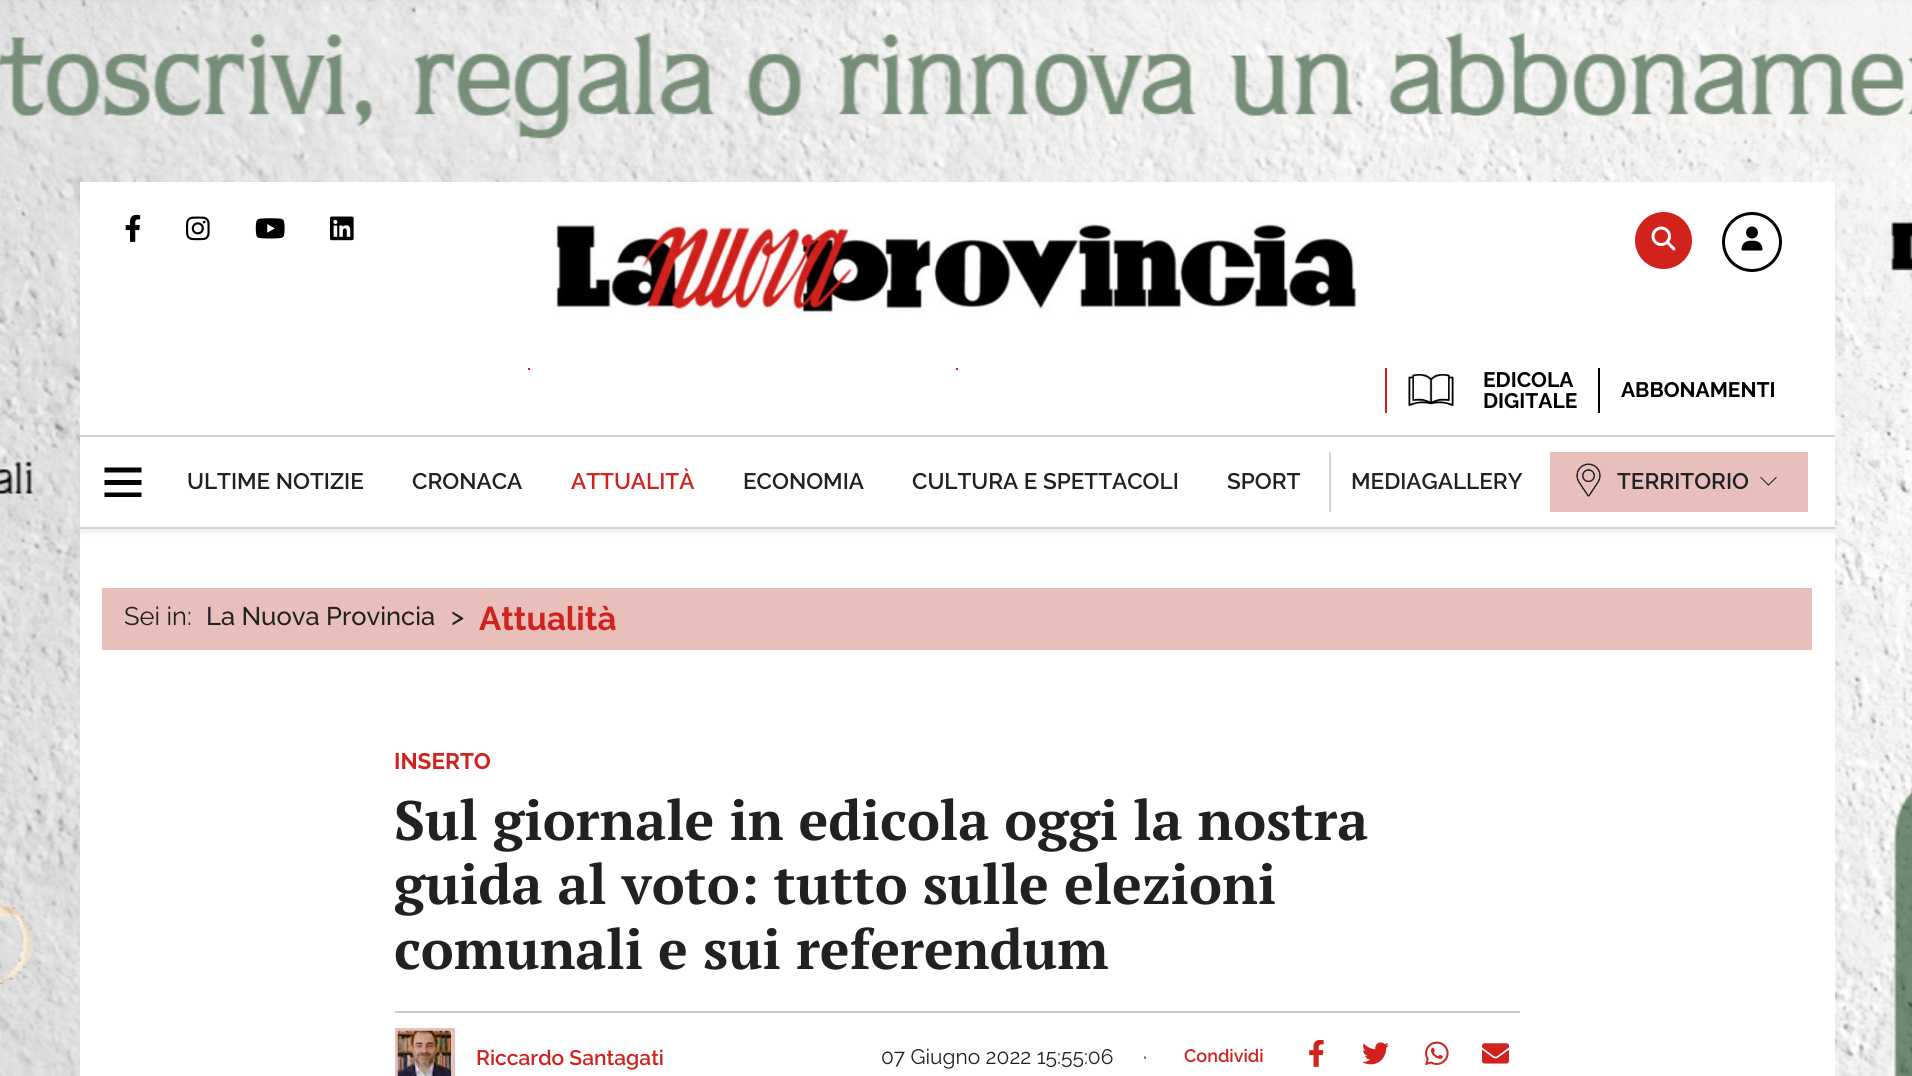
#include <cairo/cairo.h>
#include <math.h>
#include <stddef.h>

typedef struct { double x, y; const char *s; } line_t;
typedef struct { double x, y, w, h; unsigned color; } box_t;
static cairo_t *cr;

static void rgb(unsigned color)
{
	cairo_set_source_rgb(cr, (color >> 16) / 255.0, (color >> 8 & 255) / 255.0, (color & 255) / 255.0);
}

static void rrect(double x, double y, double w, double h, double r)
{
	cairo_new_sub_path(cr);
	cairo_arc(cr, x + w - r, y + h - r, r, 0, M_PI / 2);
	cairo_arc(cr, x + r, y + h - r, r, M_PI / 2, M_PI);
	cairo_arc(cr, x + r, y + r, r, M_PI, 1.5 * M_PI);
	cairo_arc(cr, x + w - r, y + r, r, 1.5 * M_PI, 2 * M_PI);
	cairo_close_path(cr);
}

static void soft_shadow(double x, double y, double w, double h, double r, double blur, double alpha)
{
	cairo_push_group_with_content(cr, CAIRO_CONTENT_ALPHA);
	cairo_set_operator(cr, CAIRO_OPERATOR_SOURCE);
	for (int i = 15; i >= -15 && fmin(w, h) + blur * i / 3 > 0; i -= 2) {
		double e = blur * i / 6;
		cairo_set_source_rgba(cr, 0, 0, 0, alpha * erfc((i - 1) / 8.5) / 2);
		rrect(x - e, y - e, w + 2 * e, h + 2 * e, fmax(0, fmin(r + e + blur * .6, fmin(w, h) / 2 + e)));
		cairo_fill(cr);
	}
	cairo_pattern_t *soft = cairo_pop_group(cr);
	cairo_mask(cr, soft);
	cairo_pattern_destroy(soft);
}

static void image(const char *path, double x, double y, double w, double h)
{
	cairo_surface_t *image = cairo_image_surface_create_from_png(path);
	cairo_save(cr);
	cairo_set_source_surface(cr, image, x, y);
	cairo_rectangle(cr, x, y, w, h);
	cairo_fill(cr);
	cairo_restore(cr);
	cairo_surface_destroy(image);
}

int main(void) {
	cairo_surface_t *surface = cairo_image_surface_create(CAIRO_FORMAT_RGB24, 1912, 1076);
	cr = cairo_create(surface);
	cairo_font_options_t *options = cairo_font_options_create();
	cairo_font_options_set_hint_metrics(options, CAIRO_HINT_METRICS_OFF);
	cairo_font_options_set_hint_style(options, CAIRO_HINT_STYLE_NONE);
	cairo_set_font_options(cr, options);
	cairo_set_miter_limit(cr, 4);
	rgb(0xffffff);
	cairo_paint(cr);
	image("img/1.png", 0, 0, 1912, 1076);
	rgb(0x000000);
	soft_shadow(80, 186, 1755, 156, 0, 3, 0.07);
	rgb(0xffffff);
	cairo_rectangle(cr, 80, 182, 1755, 253);
	cairo_fill(cr);
	image("img/2.png", 125, 214, 16, 28);
	image("img/3.png", 186, 216, 24, 25);
	image("img/4.png", 255, 218, 30, 21);
	image("img/5.png", 330, 216, 24, 25);
	image("img/6.png", 556, 220, 801, 94);
	rgb(0xd1221d);
	cairo_arc(cr, 1663.5, 240.5, 28.5, 0, 2 * M_PI);
	cairo_fill(cr);
	image("img/7.png", 1651, 226, 25, 25);
	cairo_arc(cr, 1752, 242, 28.5, 0, 2 * M_PI);
	rgb(0x000000);
	cairo_set_line_width(cr, 3);
	cairo_stroke(cr);
	image("img/8.png", 1741, 226, 22, 25);
	{
		static const box_t items[] = {
			{528, 368, 2, 2, 0xd1221d},
			{956, 368, 2, 2, 0xd1221d},
			{1385, 368, 2, 45, 0xd1221d},
			{1598, 368, 2, 45, 0x000000},
		};
		for (size_t i = 0; i < sizeof items / sizeof *items; i++) {
			rgb(items[i].color);
			cairo_rectangle(cr, items[i].x, items[i].y, items[i].w, items[i].h);
			cairo_fill(cr);
		}
	}
	image("img/9.png", 1408, 374, 46, 33);
	rgb(0xffffff);
	cairo_rectangle(cr, 80, 529, 1755, 547);
	cairo_fill(cr);
	rgb(0x000000);
	soft_shadow(80, 440, 1755, 93, 0, 3, 0.07);
	{
		static const box_t items[] = {
			{80, 437, 1755, 90, 0xffffff},
			{80, 435, 1755, 2, 0xd3d3d3},
			{80, 527, 1755, 2, 0xd3d3d3},
		};
		for (size_t i = 0; i < sizeof items / sizeof *items; i++) {
			rgb(items[i].color);
			cairo_rectangle(cr, items[i].x, items[i].y, items[i].w, items[i].h);
			cairo_fill(cr);
		}
	}
	rgb(0x000000);
	cairo_new_path(cr);
	cairo_move_to(cr, 141.5, 467.5);
	cairo_line_to(cr, 141.5, 472.5);
	cairo_line_to(cr, 104.5, 472.5);
	cairo_line_to(cr, 104.5, 467.5);
	cairo_close_path(cr);
	cairo_move_to(cr, 104.5, 485);
	cairo_line_to(cr, 141.5, 485);
	cairo_line_to(cr, 141.5, 480);
	cairo_line_to(cr, 104.5, 480);
	cairo_close_path(cr);
	cairo_move_to(cr, 104.5, 497);
	cairo_line_to(cr, 141.5, 497);
	cairo_line_to(cr, 141.5, 492.5);
	cairo_line_to(cr, 104.5, 492.5);
	cairo_close_path(cr);
	cairo_fill(cr);
	rgb(0xd3d3d3);
	cairo_rectangle(cr, 1329, 452, 2, 60);
	cairo_fill(cr);
	rgb(0xe9bfbc);
	cairo_rectangle(cr, 1550, 452, 258, 60);
	cairo_fill(cr);
	image("img/10.png", 1576, 463, 25, 34);
	image("img/11.png", 1760, 476, 17, 10);
	cairo_rectangle(cr, 102, 588, 1710, 62);
	cairo_fill(cr);
	rgb(0xcccccc);
	cairo_rectangle(cr, 395, 1011, 1125, 2);
	cairo_fill(cr);
	cairo_rectangle(cr, 396.5, 1029.5, 57, 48);
	rgb(0xe9bfbc);
	cairo_stroke(cr);
	image("img/12.png", 397, 1030, 55, 46);
	image("img/13.png", 1309, 1039, 15, 28);
	image("img/14.png", 1362, 1042, 27, 23);
	image("img/15.png", 1425, 1041, 24, 25);
	image("img/16.png", 1482, 1043, 27, 21);
	cairo_select_font_face(cr, "Raleway", CAIRO_FONT_SLANT_NORMAL, CAIRO_FONT_WEIGHT_BOLD);
	cairo_set_font_size(cr, 21);
	rgb(0x000000);
	{
		static const line_t items[] = {
			{1483, 387, "EDICOLA"},
			{1483, 408, "DIGITALE"},
			{1621, 397, "ABBONAMENTI"},
		};
		for (size_t i = 0; i < sizeof items / sizeof *items; i++) {
			cairo_move_to(cr, items[i].x, items[i].y);
			cairo_show_text(cr, items[i].s);
		}
	}
	cairo_select_font_face(cr, "Raleway SemiBold", CAIRO_FONT_SLANT_NORMAL, CAIRO_FONT_WEIGHT_NORMAL);
	cairo_set_font_size(cr, 22.5);
	rgb(0x212121);
	cairo_move_to(cr, 187, 489);
	cairo_show_text(cr, "ULTIME NOTIZIE");
	cairo_move_to(cr, 412, 489);
	cairo_show_text(cr, "CRONACA");
	rgb(0xd1221d);
	cairo_move_to(cr, 571, 489);
	cairo_show_text(cr, "ATTUALITÀ");
	rgb(0x212121);
	{
		static const line_t items[] = {
			{743, 489, "ECONOMIA"},
			{912, 489, "CULTURA E SPETTACOLI"},
			{1227, 489, "SPORT"},
			{1351, 489, "MEDIAGALLERY"},
			{1617, 489, "TERRITORIO"},
		};
		for (size_t i = 0; i < sizeof items / sizeof *items; i++) {
			cairo_move_to(cr, items[i].x, items[i].y);
			cairo_show_text(cr, items[i].s);
		}
	}
	cairo_select_font_face(cr, "Raleway", CAIRO_FONT_SLANT_NORMAL, CAIRO_FONT_WEIGHT_NORMAL);
	cairo_set_font_size(cr, 25.5);
	cairo_move_to(cr, 124, 625);
	cairo_show_text(cr, "Sei in:");
	cairo_select_font_face(cr, "Raleway Medium", CAIRO_FONT_SLANT_NORMAL, CAIRO_FONT_WEIGHT_NORMAL);
	cairo_move_to(cr, 206, 625);
	cairo_show_text(cr, "La Nuova Provincia");
	cairo_move_to(cr, 451, 625);
	cairo_show_text(cr, ">");
	cairo_select_font_face(cr, "Raleway", CAIRO_FONT_SLANT_NORMAL, CAIRO_FONT_WEIGHT_BOLD);
	cairo_set_font_size(cr, 33);
	rgb(0xd1221d);
	cairo_move_to(cr, 479, 630);
	cairo_show_text(cr, "Attualità");
	cairo_set_font_size(cr, 22.5);
	cairo_move_to(cr, 394, 769);
	cairo_show_text(cr, "INSERTO");
	cairo_select_font_face(cr, "PT Serif", CAIRO_FONT_SLANT_NORMAL, CAIRO_FONT_WEIGHT_BOLD);
	cairo_set_font_size(cr, 55.5);
	rgb(0x212121);
	{
		static const line_t items[] = {
			{394, 840, "Sul giornale in edicola oggi la nostra"},
			{394, 904, "guida al voto: tutto sulle elezioni"},
			{394, 969, "comunali e sui referendum"},
		};
		for (size_t i = 0; i < sizeof items / sizeof *items; i++) {
			cairo_move_to(cr, items[i].x, items[i].y);
			cairo_show_text(cr, items[i].s);
		}
	}
	cairo_select_font_face(cr, "Raleway SemiBold", CAIRO_FONT_SLANT_NORMAL, CAIRO_FONT_WEIGHT_NORMAL);
	cairo_set_font_size(cr, 21);
	rgb(0xd1221d);
	cairo_move_to(cr, 476, 1065);
	cairo_show_text(cr, "Riccardo Santagati");
	cairo_select_font_face(cr, "Raleway", CAIRO_FONT_SLANT_NORMAL, CAIRO_FONT_WEIGHT_NORMAL);
	rgb(0x212121);
	cairo_move_to(cr, 881, 1064);
	cairo_show_text(cr, "07 Giugno 2022 15:55:06");
	cairo_move_to(cr, 1143, 1064);
	cairo_show_text(cr, "·");
	cairo_select_font_face(cr, "Raleway SemiBold", CAIRO_FONT_SLANT_NORMAL, CAIRO_FONT_WEIGHT_NORMAL);
	cairo_set_font_size(cr, 18);
	rgb(0xd1221d);
	cairo_move_to(cr, 1184, 1062);
	cairo_show_text(cr, "Condividi");
	cairo_surface_write_to_png(surface, "page.png");
	cairo_font_options_destroy(options);
	cairo_destroy(cr);
	cairo_surface_destroy(surface);
	return 0;
}
